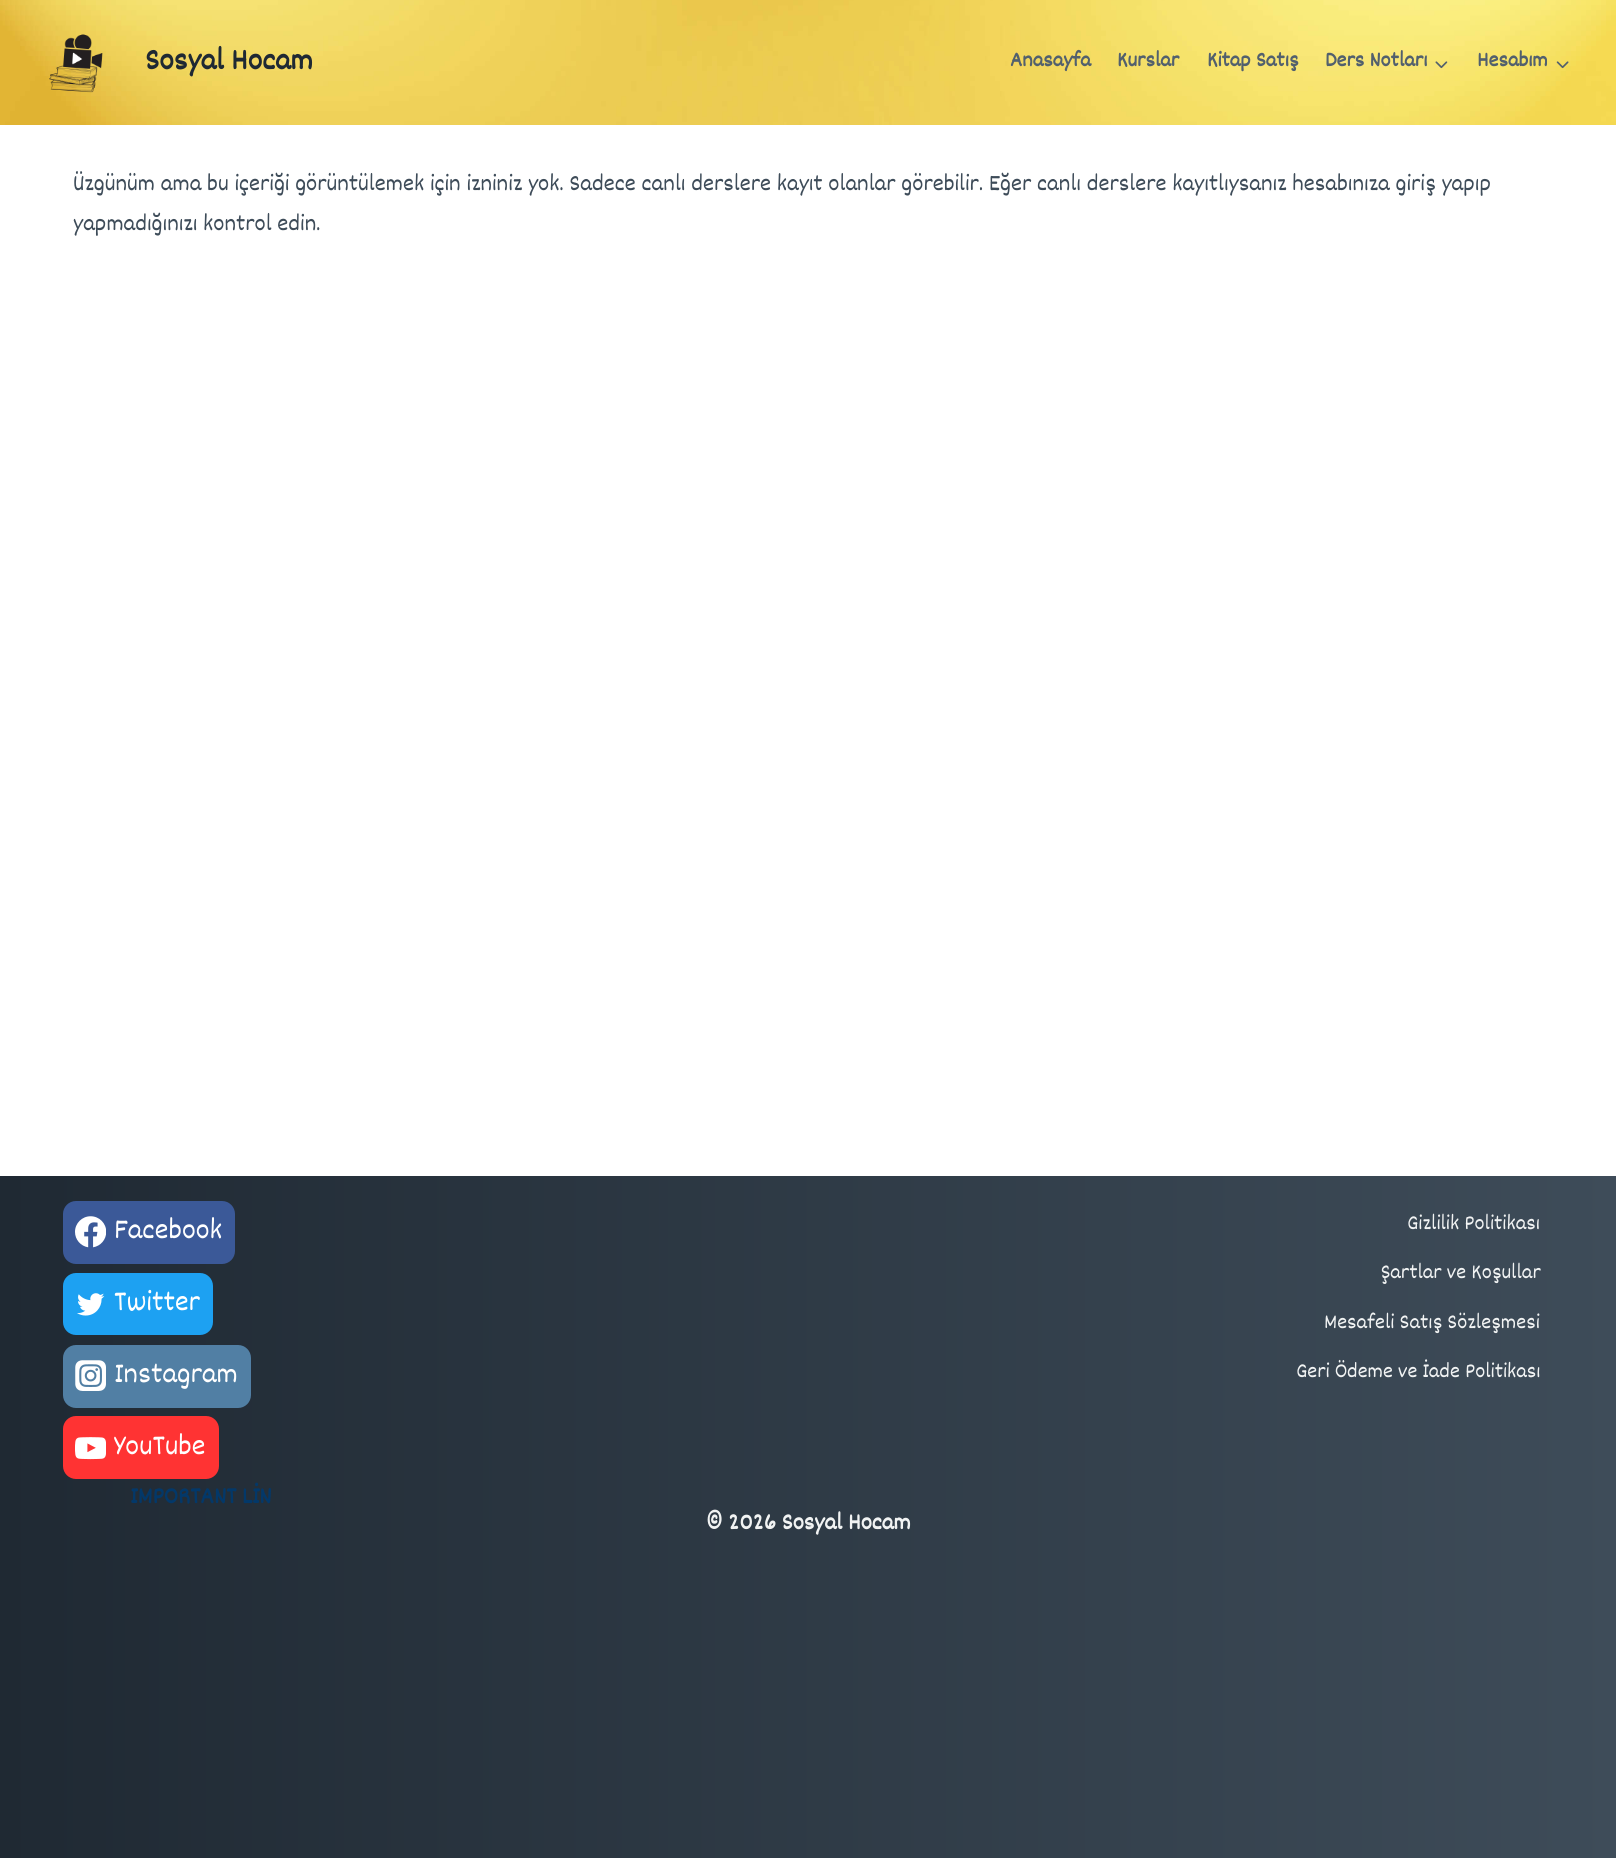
#include <cairo/cairo.h>
#include <math.h>
#include <stddef.h>

typedef struct { double x, y; const char *s; } line_t;
static cairo_t *cr;

static void rgb(unsigned color)
{
	cairo_set_source_rgb(cr, (color >> 16) / 255.0, (color >> 8 & 255) / 255.0, (color & 255) / 255.0);
}

static void rrect(double x, double y, double w, double h, double r)
{
	cairo_new_sub_path(cr);
	cairo_arc(cr, x + w - r, y + h - r, r, 0, M_PI / 2);
	cairo_arc(cr, x + r, y + h - r, r, M_PI / 2, M_PI);
	cairo_arc(cr, x + r, y + r, r, M_PI, 1.5 * M_PI);
	cairo_arc(cr, x + w - r, y + r, r, 1.5 * M_PI, 2 * M_PI);
	cairo_close_path(cr);
}

static void image(const char *path, double x, double y, double w, double h)
{
	cairo_surface_t *image = cairo_image_surface_create_from_png(path);
	cairo_save(cr);
	cairo_set_source_surface(cr, image, x, y);
	cairo_rectangle(cr, x, y, w, h);
	cairo_fill(cr);
	cairo_restore(cr);
	cairo_surface_destroy(image);
}

int main(void) {
	cairo_surface_t *surface = cairo_image_surface_create(CAIRO_FORMAT_RGB24, 1616, 1858);
	cr = cairo_create(surface);
	cairo_font_options_t *options = cairo_font_options_create();
	cairo_font_options_set_hint_metrics(options, CAIRO_HINT_METRICS_OFF);
	cairo_font_options_set_hint_style(options, CAIRO_HINT_STYLE_NONE);
	cairo_set_font_options(cr, options);
	cairo_set_miter_limit(cr, 4);
	cairo_pattern_t *gradient;
	rgb(0xffffff);
	cairo_paint(cr);
	image("img/1.png", 0, 0, 1616, 125);
	image("img/2.png", 49, 34, 54, 59);
	image("img/3.png", 1435, 61, 13, 8);
	image("img/4.png", 1556, 61, 13, 8);
	gradient = cairo_pattern_create_linear(0, 1518, 1616, 1518);
	cairo_pattern_add_color_stop_rgba(gradient, 0, 0.122, 0.161, 0.2, 1);
	cairo_pattern_add_color_stop_rgba(gradient, 1, 0.243, 0.298, 0.349, 1);
	cairo_set_source(cr, gradient);
	cairo_pattern_destroy(gradient);
	cairo_rectangle(cr, 0, 1176, 1616, 682);
	cairo_fill(cr);
	rgb(0x3b5998);
	rrect(63, 1201, 172, 63, 13);
	cairo_fill(cr);
	image("img/5.png", 75, 1216, 31, 32);
	rgb(0x1da1f2);
	rrect(63, 1273, 150, 62, 13);
	cairo_fill(cr);
	image("img/6.png", 77, 1293, 28, 23);
	rgb(0x517fa4);
	rrect(63, 1345, 188, 63, 13);
	cairo_fill(cr);
	image("img/7.png", 75, 1360, 31, 31);
	rgb(0xff3333);
	rrect(63, 1416, 156, 63, 13);
	cairo_fill(cr);
	image("img/8.png", 75, 1437, 31, 23);
	cairo_select_font_face(cr, "Dekko", CAIRO_FONT_SLANT_NORMAL, CAIRO_FONT_WEIGHT_BOLD);
	cairo_set_font_size(cr, 32.5);
	rgb(0x1f2933);
	cairo_move_to(cr, 145, 69);
	cairo_show_text(cr, "Sosyal Hocam");
	cairo_set_font_size(cr, 22.5);
	rgb(0x52606d);
	{
		static const line_t items[] = {
			{1010, 66, "Anasayfa"},
			{1117, 66, "Kurslar"},
			{1207, 66, "Kitap Satış"},
			{1325, 66, "Ders Notları"},
			{1477, 66, "Hesabım"},
		};
		for (size_t i = 0; i < sizeof items / sizeof *items; i++) {
			cairo_move_to(cr, items[i].x, items[i].y);
			cairo_show_text(cr, items[i].s);
		}
	}
	cairo_select_font_face(cr, "Dekko", CAIRO_FONT_SLANT_NORMAL, CAIRO_FONT_WEIGHT_NORMAL);
	cairo_set_font_size(cr, 25);
	rgb(0x3e4c59);
	cairo_move_to(cr, 73, 190);
	cairo_show_text(cr, "Üzgünüm ama bu içeriği görüntülemek için izniniz yok. Sadece canlı derslere kayıt olanlar görebilir. Eğer canlı derslere kayıtlıysanız hesabınıza giriş yapıp");
	cairo_move_to(cr, 73, 230);
	cairo_show_text(cr, "yapmadığınızı kontrol edin.");
	cairo_set_font_size(cr, 31);
	rgb(0xffffff);
	{
		static const line_t items[] = {
			{114, 1238, "Facebook"},
			{114, 1310, "Twitter"},
			{114, 1382, "Instagram"},
			{114, 1454, "YouTube"},
		};
		for (size_t i = 0; i < sizeof items / sizeof *items; i++) {
			cairo_move_to(cr, items[i].x, items[i].y);
			cairo_show_text(cr, items[i].s);
		}
	}
	cairo_set_font_size(cr, 22.5);
	rgb(0xf1f3f3);
	{
		static const line_t items[] = {
			{1407, 1229, "Gizlilik Politikası"},
			{1381, 1278, "Şartlar ve Koşullar"},
			{1324, 1328, "Mesafeli Satış Sözleşmesi"},
			{1296, 1377, "Geri Ödeme ve İade Politikası"},
		};
		for (size_t i = 0; i < sizeof items / sizeof *items; i++) {
			cairo_move_to(cr, items[i].x, items[i].y);
			cairo_show_text(cr, items[i].s);
		}
	}
	cairo_select_font_face(cr, "Dekko", CAIRO_FONT_SLANT_NORMAL, CAIRO_FONT_WEIGHT_BOLD);
	cairo_set_font_size(cr, 25);
	rgb(0x033869);
	cairo_move_to(cr, 130, 1503);
	cairo_show_text(cr, "IMPORTANT LİN");
	rgb(0xf1f3f3);
	cairo_move_to(cr, 706, 1529);
	cairo_show_text(cr, "© 2026 Sosyal Hocam");
	cairo_surface_write_to_png(surface, "page.png");
	cairo_font_options_destroy(options);
	cairo_destroy(cr);
	cairo_surface_destroy(surface);
	return 0;
}
